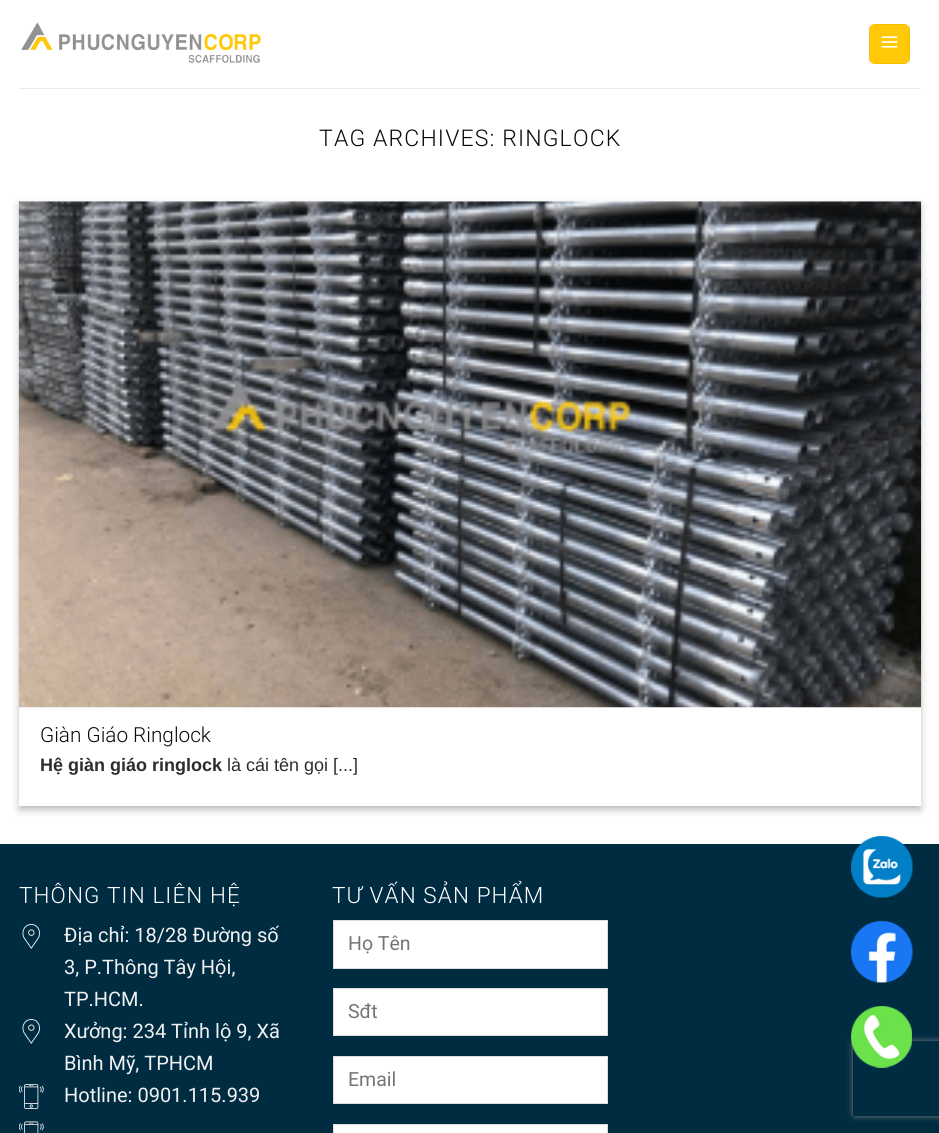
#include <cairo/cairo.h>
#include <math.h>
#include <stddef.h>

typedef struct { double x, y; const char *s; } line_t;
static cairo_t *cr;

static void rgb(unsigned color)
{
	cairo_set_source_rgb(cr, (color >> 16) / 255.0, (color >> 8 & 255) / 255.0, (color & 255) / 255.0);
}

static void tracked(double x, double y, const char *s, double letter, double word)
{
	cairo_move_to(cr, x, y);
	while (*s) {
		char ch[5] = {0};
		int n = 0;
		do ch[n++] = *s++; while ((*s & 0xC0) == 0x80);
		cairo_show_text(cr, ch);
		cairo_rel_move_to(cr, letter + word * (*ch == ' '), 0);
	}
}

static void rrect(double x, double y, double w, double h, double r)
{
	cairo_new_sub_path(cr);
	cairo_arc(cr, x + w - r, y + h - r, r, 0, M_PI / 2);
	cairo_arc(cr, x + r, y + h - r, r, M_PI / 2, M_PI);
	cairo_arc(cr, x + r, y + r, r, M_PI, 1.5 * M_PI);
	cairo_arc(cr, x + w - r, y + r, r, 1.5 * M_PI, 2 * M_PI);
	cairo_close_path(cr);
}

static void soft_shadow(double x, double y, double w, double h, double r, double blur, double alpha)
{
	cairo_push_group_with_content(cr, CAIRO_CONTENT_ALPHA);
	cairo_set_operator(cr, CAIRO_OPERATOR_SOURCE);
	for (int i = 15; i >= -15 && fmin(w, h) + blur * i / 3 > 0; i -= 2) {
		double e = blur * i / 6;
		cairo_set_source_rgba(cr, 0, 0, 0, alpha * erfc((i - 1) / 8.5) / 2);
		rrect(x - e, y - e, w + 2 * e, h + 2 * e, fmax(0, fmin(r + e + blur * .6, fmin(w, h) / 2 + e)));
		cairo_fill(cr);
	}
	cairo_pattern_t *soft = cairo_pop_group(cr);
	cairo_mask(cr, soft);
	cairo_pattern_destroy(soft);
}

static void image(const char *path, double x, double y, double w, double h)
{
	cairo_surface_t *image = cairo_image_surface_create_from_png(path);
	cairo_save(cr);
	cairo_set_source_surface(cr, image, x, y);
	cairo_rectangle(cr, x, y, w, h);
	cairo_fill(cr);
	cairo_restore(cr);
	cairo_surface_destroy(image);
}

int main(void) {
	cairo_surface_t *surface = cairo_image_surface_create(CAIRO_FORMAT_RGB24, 939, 1133);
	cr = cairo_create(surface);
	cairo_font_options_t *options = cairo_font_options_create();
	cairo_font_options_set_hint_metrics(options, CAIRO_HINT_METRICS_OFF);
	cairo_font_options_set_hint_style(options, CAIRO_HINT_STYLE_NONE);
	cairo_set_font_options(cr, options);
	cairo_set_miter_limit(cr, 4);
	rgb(0xffffff);
	cairo_paint(cr);
	image("img/1.png", 21, 22, 240, 42);
	rgb(0xffc907);
	rrect(869, 24, 41, 40, 6);
	cairo_fill(cr);
	cairo_rectangle(cr, 869.5, 24.5, 40, 39);
	cairo_set_source_rgba(cr, 0, 0, 0, 0.05);
	cairo_set_line_width(cr, 1);
	cairo_stroke(cr);
	image("img/2.png", 881, 36, 17, 12);
	rgb(0xeaeaea);
	cairo_rectangle(cr, 19, 88, 902, 1);
	cairo_fill(cr);
	rgb(0x000000);
	soft_shadow(19, 205, 902, 605, 0, 4, 0.23);
	soft_shadow(24, 210, 892, 595, 0, 4, 0.16);
	rgb(0xffffff);
	cairo_rectangle(cr, 19, 201, 902, 605);
	cairo_fill(cr);
	image("img/3.png", 18, 201, 904, 507);
	rgb(0x002c42);
	cairo_new_path(cr);
	cairo_move_to(cr, 0, 844);
	cairo_line_to(cr, 0, 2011);
	cairo_line_to(cr, 7, 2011);
	cairo_line_to(cr, 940, 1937);
	cairo_line_to(cr, 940, 844);
	cairo_close_path(cr);
	cairo_fill(cr);
	image("img/4.png", 22, 924, 18, 25);
	image("img/4.png", 22, 1019, 18, 25);
	image("img/5.png", 19, 1084, 25, 25);
	image("img/6.png", 19, 1121, 25, 12);
	rgb(0xffffff);
	cairo_rectangle(cr, 333.5, 920.5, 274, 48);
	cairo_fill_preserve(cr);
	rgb(0xdddddd);
	cairo_stroke(cr);
	rgb(0xffffff);
	cairo_rectangle(cr, 333.5, 988.5, 274, 47);
	cairo_fill_preserve(cr);
	rgb(0xdddddd);
	cairo_stroke(cr);
	rgb(0xffffff);
	cairo_rectangle(cr, 333.5, 1056.5, 274, 47);
	cairo_fill_preserve(cr);
	rgb(0xdddddd);
	cairo_stroke(cr);
	rgb(0xffffff);
	cairo_rectangle(cr, 333.5, 1124.5, 274, 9);
	cairo_fill_preserve(cr);
	rgb(0xdddddd);
	cairo_stroke(cr);
	image("img/7.png", 851, 836, 62, 62);
	image("img/8.png", 851, 921, 62, 62);
	cairo_save(cr);
	cairo_set_fill_rule(cr, CAIRO_FILL_RULE_EVEN_ODD);
	cairo_new_path(cr);
	cairo_move_to(cr, 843, 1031);
	cairo_line_to(cr, 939, 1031);
	cairo_line_to(cr, 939, 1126);
	cairo_line_to(cr, 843, 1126);
	cairo_close_path(cr);
	cairo_move_to(cr, 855.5, 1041);
	cairo_line_to(cr, 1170.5, 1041);
	cairo_curve_to(cr, 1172, 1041, 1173, 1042, 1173, 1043.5);
	cairo_line_to(cr, 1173, 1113.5);
	cairo_curve_to(cr, 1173, 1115, 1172, 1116, 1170.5, 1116);
	cairo_line_to(cr, 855.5, 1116);
	cairo_curve_to(cr, 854, 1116, 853, 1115, 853, 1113.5);
	cairo_line_to(cr, 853, 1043.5);
	cairo_curve_to(cr, 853, 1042, 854, 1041, 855.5, 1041);
	cairo_close_path(cr);
	cairo_clip(cr);
	rgb(0x808080);
	soft_shadow(853, 1041, 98, 75, 2.5, 3, 1);
	cairo_restore(cr);
	image("img/9.png", 851, 1006, 61, 62);
	cairo_select_font_face(cr, "Roboto Light", CAIRO_FONT_SLANT_NORMAL, CAIRO_FONT_WEIGHT_NORMAL);
	cairo_set_font_size(cr, 23);
	rgb(0x0a0a0a);
	tracked(319, 146, "TAG ARCHIVES: RINGLOCK", 1.15, 0);
	cairo_set_font_size(cr, 20.75);
	cairo_move_to(cr, 40, 742);
	cairo_show_text(cr, "Giàn Giáo Ringlock");
	cairo_select_font_face(cr, "Liberation Sans", CAIRO_FONT_SLANT_NORMAL, CAIRO_FONT_WEIGHT_BOLD);
	cairo_set_font_size(cr, 18);
	rgb(0x2d2d2d);
	cairo_move_to(cr, 40, 771);
	cairo_show_text(cr, "Hệ giàn giáo ringlock");
	cairo_select_font_face(cr, "Liberation Sans", CAIRO_FONT_SLANT_NORMAL, CAIRO_FONT_WEIGHT_NORMAL);
	cairo_move_to(cr, 227, 771);
	cairo_show_text(cr, "là cái tên gọi [...]");
	cairo_select_font_face(cr, "Roboto Light", CAIRO_FONT_SLANT_NORMAL, CAIRO_FONT_WEIGHT_NORMAL);
	cairo_set_font_size(cr, 22.5);
	rgb(0xffffff);
	tracked(19, 903, "THÔNG TIN LIÊN HỆ", 1.1, 0);
	cairo_select_font_face(cr, "Roboto", CAIRO_FONT_SLANT_NORMAL, CAIRO_FONT_WEIGHT_NORMAL);
	cairo_set_font_size(cr, 20);
	rgb(0xf1f1f1);
	{
		static const line_t items[] = {
			{64, 942, "Địa chỉ: 18/28 Đường số"},
			{64, 974, "3, P.Thông Tây Hội,"},
			{64, 1006, "TP.HCM."},
			{64, 1038, "Xưởng: 234 Tỉnh lộ 9, Xã"},
			{64, 1070, "Bình Mỹ, TPHCM"},
			{64, 1102, "Hotline: 0901.115.939"},
		};
		for (size_t i = 0; i < sizeof items / sizeof *items; i++) {
			cairo_move_to(cr, items[i].x, items[i].y);
			cairo_show_text(cr, items[i].s);
		}
	}
	cairo_select_font_face(cr, "Roboto Light", CAIRO_FONT_SLANT_NORMAL, CAIRO_FONT_WEIGHT_NORMAL);
	cairo_set_font_size(cr, 22.5);
	rgb(0xffffff);
	tracked(332, 903, "TƯ VẤN SẢN PHẨM", 1.1, 0);
	cairo_select_font_face(cr, "Roboto", CAIRO_FONT_SLANT_NORMAL, CAIRO_FONT_WEIGHT_NORMAL);
	cairo_set_font_size(cr, 19.5);
	rgb(0x757575);
	{
		static const line_t items[] = {
			{348, 950, "Họ Tên"},
			{348, 1018, "Sđt"},
			{348, 1086, "Email"},
		};
		for (size_t i = 0; i < sizeof items / sizeof *items; i++) {
			cairo_move_to(cr, items[i].x, items[i].y);
			cairo_show_text(cr, items[i].s);
		}
	}
	cairo_surface_write_to_png(surface, "page.png");
	cairo_font_options_destroy(options);
	cairo_destroy(cr);
	cairo_surface_destroy(surface);
	return 0;
}
